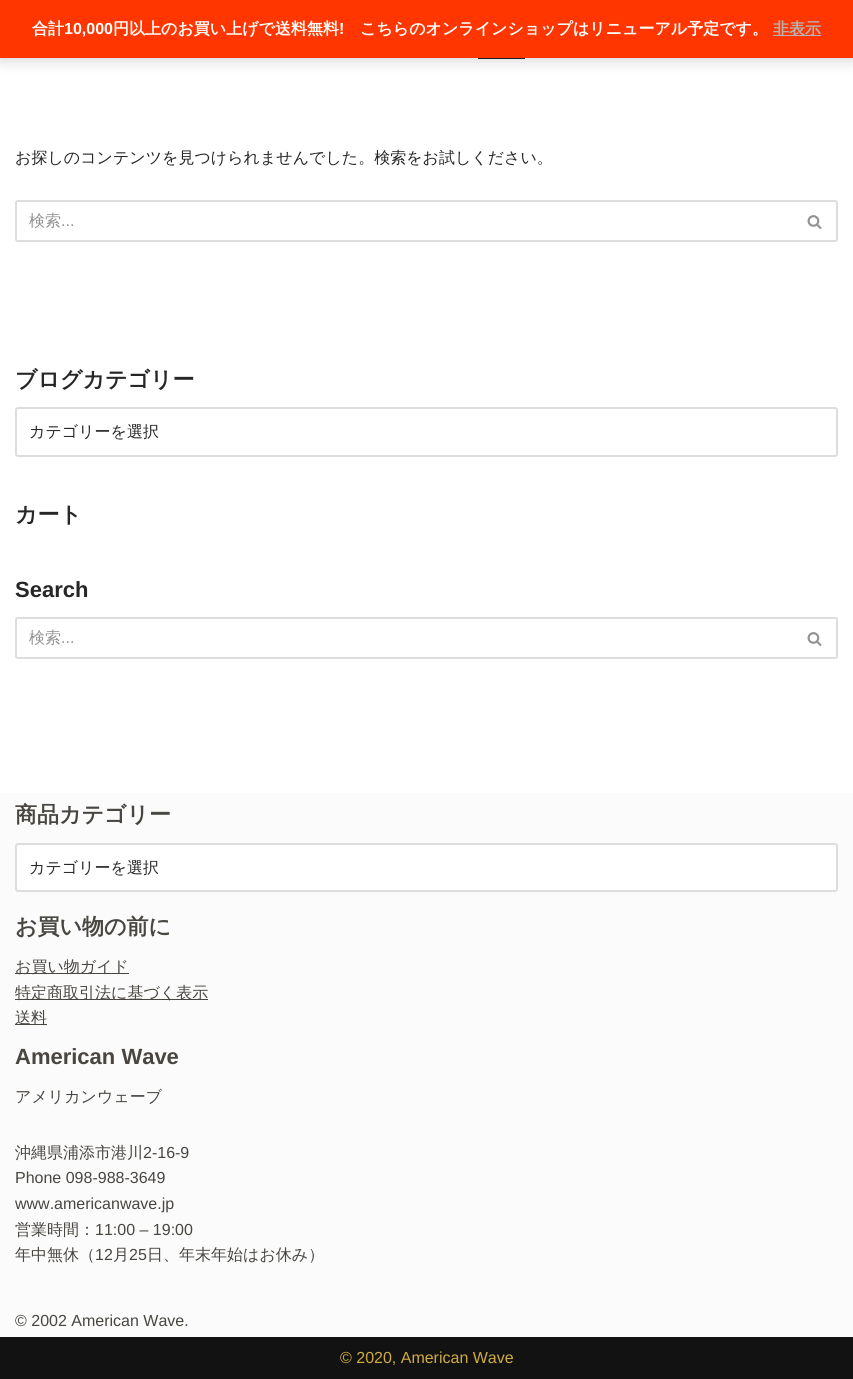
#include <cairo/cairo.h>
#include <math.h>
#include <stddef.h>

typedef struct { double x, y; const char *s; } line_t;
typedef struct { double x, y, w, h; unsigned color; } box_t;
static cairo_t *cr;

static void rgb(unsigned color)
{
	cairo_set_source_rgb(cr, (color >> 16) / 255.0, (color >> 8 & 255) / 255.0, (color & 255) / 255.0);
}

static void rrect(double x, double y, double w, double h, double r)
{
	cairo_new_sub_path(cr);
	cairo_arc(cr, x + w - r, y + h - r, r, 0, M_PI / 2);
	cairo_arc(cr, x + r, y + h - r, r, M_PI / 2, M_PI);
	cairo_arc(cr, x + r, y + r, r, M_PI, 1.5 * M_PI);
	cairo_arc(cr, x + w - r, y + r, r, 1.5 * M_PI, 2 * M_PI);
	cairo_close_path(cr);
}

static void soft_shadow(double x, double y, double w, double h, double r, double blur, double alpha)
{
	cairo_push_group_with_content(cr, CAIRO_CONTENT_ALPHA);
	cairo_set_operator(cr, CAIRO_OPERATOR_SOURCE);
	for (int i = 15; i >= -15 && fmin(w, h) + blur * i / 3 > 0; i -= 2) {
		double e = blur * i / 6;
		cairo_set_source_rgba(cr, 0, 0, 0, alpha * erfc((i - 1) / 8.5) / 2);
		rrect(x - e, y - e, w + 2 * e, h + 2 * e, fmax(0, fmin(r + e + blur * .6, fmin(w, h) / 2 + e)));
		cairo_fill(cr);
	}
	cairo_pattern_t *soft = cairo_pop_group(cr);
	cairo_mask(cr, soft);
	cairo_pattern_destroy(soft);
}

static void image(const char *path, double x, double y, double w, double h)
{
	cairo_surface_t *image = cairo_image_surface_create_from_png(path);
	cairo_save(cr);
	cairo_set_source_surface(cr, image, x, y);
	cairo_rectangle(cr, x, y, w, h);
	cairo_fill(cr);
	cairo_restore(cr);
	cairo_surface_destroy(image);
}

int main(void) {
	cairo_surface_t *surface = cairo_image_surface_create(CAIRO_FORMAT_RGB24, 853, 1379);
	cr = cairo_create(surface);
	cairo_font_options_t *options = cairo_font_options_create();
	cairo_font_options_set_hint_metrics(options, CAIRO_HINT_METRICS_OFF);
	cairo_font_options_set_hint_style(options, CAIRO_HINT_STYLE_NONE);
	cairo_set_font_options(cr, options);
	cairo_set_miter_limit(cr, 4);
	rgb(0xffffff);
	cairo_paint(cr);
	cairo_rectangle(cr, 478.5, 25.5, 46, 33);
	rgb(0x272626);
	cairo_set_line_width(cr, 1);
	cairo_stroke(cr);
	rgb(0x000000);
	soft_shadow(0, 1, 853, 58, 0, 8, 0.2);
	rgb(0xff3600);
	cairo_rectangle(cr, 0, 0, 853, 58);
	cairo_fill(cr);
	rgb(0xb4b4b4);
	cairo_rectangle(cr, 773, 35, 48, 1);
	cairo_fill(cr);
	rgb(0xdddddd);
	cairo_set_fill_rule(cr, CAIRO_FILL_RULE_EVEN_ODD);
	cairo_new_path(cr);
	cairo_move_to(cr, 18, 200);
	cairo_line_to(cr, 793, 200);
	cairo_line_to(cr, 793, 242);
	cairo_line_to(cr, 18, 242);
	cairo_curve_to(cr, 16, 242, 15, 241, 15, 239);
	cairo_line_to(cr, 15, 203);
	cairo_curve_to(cr, 15, 201, 16, 200, 18, 200);
	cairo_close_path(cr);
	cairo_move_to(cr, 18, 202);
	cairo_line_to(cr, 793, 202);
	cairo_line_to(cr, 793, 240);
	cairo_line_to(cr, 18, 240);
	cairo_curve_to(cr, 17, 240, 17, 240, 17, 239);
	cairo_line_to(cr, 17, 203);
	cairo_curve_to(cr, 17, 202, 17, 202, 18, 202);
	cairo_close_path(cr);
	cairo_fill(cr);
	cairo_new_path(cr);
	cairo_move_to(cr, 793, 200);
	cairo_line_to(cr, 835, 200);
	cairo_curve_to(cr, 837, 200, 838, 201, 838, 203);
	cairo_line_to(cr, 838, 239);
	cairo_curve_to(cr, 838, 241, 837, 242, 835, 242);
	cairo_line_to(cr, 793, 242);
	cairo_close_path(cr);
	cairo_move_to(cr, 793, 202);
	cairo_line_to(cr, 835, 202);
	cairo_curve_to(cr, 836, 202, 836, 202, 836, 203);
	cairo_line_to(cr, 836, 239);
	cairo_curve_to(cr, 836, 240, 836, 240, 835, 240);
	cairo_line_to(cr, 793, 240);
	cairo_close_path(cr);
	cairo_fill(cr);
	image("img/1.png", 807, 215, 15, 14);
	rrect(16, 408, 821, 48, 2);
	cairo_set_line_width(cr, 2);
	cairo_stroke(cr);
	cairo_new_path(cr);
	cairo_move_to(cr, 18, 617);
	cairo_line_to(cr, 793, 617);
	cairo_line_to(cr, 793, 659);
	cairo_line_to(cr, 18, 659);
	cairo_curve_to(cr, 16, 659, 15, 658, 15, 656);
	cairo_line_to(cr, 15, 620);
	cairo_curve_to(cr, 15, 618, 16, 617, 18, 617);
	cairo_close_path(cr);
	cairo_move_to(cr, 18, 619);
	cairo_line_to(cr, 793, 619);
	cairo_line_to(cr, 793, 657);
	cairo_line_to(cr, 18, 657);
	cairo_curve_to(cr, 17, 657, 17, 657, 17, 656);
	cairo_line_to(cr, 17, 620);
	cairo_curve_to(cr, 17, 619, 17, 619, 18, 619);
	cairo_close_path(cr);
	cairo_fill(cr);
	cairo_new_path(cr);
	cairo_move_to(cr, 793, 617);
	cairo_line_to(cr, 835, 617);
	cairo_curve_to(cr, 837, 617, 838, 618, 838, 620);
	cairo_line_to(cr, 838, 656);
	cairo_curve_to(cr, 838, 658, 837, 659, 835, 659);
	cairo_line_to(cr, 793, 659);
	cairo_close_path(cr);
	cairo_move_to(cr, 793, 619);
	cairo_line_to(cr, 835, 619);
	cairo_curve_to(cr, 836, 619, 836, 619, 836, 620);
	cairo_line_to(cr, 836, 656);
	cairo_curve_to(cr, 836, 657, 836, 657, 835, 657);
	cairo_line_to(cr, 793, 657);
	cairo_close_path(cr);
	cairo_fill(cr);
	image("img/1.png", 807, 632, 15, 14);
	rgb(0xfbfbfb);
	cairo_rectangle(cr, 0, 793, 853, 544);
	cairo_fill(cr);
	rgb(0xffffff);
	rrect(16, 844, 821, 47, 2);
	cairo_fill_preserve(cr);
	rgb(0xdddddd);
	cairo_stroke(cr);
	{
		static const box_t items[] = {
			{15, 973, 114, 1, 0x494641},
			{15, 999, 193, 1, 0x494641},
			{15, 1024, 32, 1, 0x494641},
			{0, 1337, 853, 42, 0x121212},
		};
		for (size_t i = 0; i < sizeof items / sizeof *items; i++) {
			rgb(items[i].color);
			cairo_rectangle(cr, items[i].x, items[i].y, items[i].w, items[i].h);
			cairo_fill(cr);
		}
	}
	cairo_select_font_face(cr, "WenQuanYi Zen Hei", CAIRO_FONT_SLANT_NORMAL, CAIRO_FONT_WEIGHT_BOLD);
	cairo_set_font_size(cr, 16);
	rgb(0xffffff);
	cairo_move_to(cr, 32, 34);
	cairo_show_text(cr, "合計");
	cairo_select_font_face(cr, "Liberation Sans", CAIRO_FONT_SLANT_NORMAL, CAIRO_FONT_WEIGHT_BOLD);
	cairo_move_to(cr, 64, 34);
	cairo_show_text(cr, "10,000");
	cairo_select_font_face(cr, "WenQuanYi Zen Hei", CAIRO_FONT_SLANT_NORMAL, CAIRO_FONT_WEIGHT_BOLD);
	cairo_move_to(cr, 113, 34);
	cairo_show_text(cr, "円以上のお買い上げで送料無料");
	cairo_select_font_face(cr, "Liberation Sans", CAIRO_FONT_SLANT_NORMAL, CAIRO_FONT_WEIGHT_BOLD);
	cairo_move_to(cr, 339, 34);
	cairo_show_text(cr, "!");
	cairo_select_font_face(cr, "WenQuanYi Zen Hei", CAIRO_FONT_SLANT_NORMAL, CAIRO_FONT_WEIGHT_BOLD);
	cairo_move_to(cr, 360, 34);
	cairo_show_text(cr, "こちらのオンラインショップはリニューアル予定です。");
	rgb(0xb4b4b4);
	cairo_move_to(cr, 773, 34);
	cairo_show_text(cr, "非表示");
	cairo_select_font_face(cr, "WenQuanYi Zen Hei Medium", CAIRO_FONT_SLANT_NORMAL, CAIRO_FONT_WEIGHT_NORMAL);
	rgb(0x272626);
	cairo_move_to(cr, 15, 163);
	cairo_show_text(cr, "お探しのコンテンツを見つけられませんでした。検索をお試しください。");
	rgb(0x939393);
	cairo_move_to(cr, 29, 226);
	cairo_show_text(cr, "検索");
	cairo_select_font_face(cr, "Liberation Sans", CAIRO_FONT_SLANT_NORMAL, CAIRO_FONT_WEIGHT_NORMAL);
	cairo_move_to(cr, 61, 226);
	cairo_show_text(cr, "...");
	cairo_select_font_face(cr, "WenQuanYi Zen Hei", CAIRO_FONT_SLANT_NORMAL, CAIRO_FONT_WEIGHT_BOLD);
	cairo_set_font_size(cr, 22);
	rgb(0x272626);
	cairo_move_to(cr, 15, 387);
	cairo_show_text(cr, "ブログカテゴリー");
	cairo_select_font_face(cr, "WenQuanYi Zen Hei Medium", CAIRO_FONT_SLANT_NORMAL, CAIRO_FONT_WEIGHT_NORMAL);
	cairo_set_font_size(cr, 16);
	cairo_move_to(cr, 29, 437);
	cairo_show_text(cr, "カテゴリーを選択");
	cairo_select_font_face(cr, "WenQuanYi Zen Hei", CAIRO_FONT_SLANT_NORMAL, CAIRO_FONT_WEIGHT_BOLD);
	cairo_set_font_size(cr, 22);
	cairo_move_to(cr, 15, 522);
	cairo_show_text(cr, "カート");
	cairo_select_font_face(cr, "Liberation Sans", CAIRO_FONT_SLANT_NORMAL, CAIRO_FONT_WEIGHT_BOLD);
	cairo_move_to(cr, 15, 597);
	cairo_show_text(cr, "Search");
	cairo_select_font_face(cr, "WenQuanYi Zen Hei Medium", CAIRO_FONT_SLANT_NORMAL, CAIRO_FONT_WEIGHT_NORMAL);
	cairo_set_font_size(cr, 16);
	rgb(0x939393);
	cairo_move_to(cr, 29, 643);
	cairo_show_text(cr, "検索");
	cairo_select_font_face(cr, "Liberation Sans", CAIRO_FONT_SLANT_NORMAL, CAIRO_FONT_WEIGHT_NORMAL);
	cairo_move_to(cr, 61, 643);
	cairo_show_text(cr, "...");
	cairo_select_font_face(cr, "WenQuanYi Zen Hei", CAIRO_FONT_SLANT_NORMAL, CAIRO_FONT_WEIGHT_BOLD);
	cairo_set_font_size(cr, 22);
	rgb(0x494641);
	cairo_move_to(cr, 15, 822);
	cairo_show_text(cr, "商品カテゴリー");
	cairo_select_font_face(cr, "WenQuanYi Zen Hei Medium", CAIRO_FONT_SLANT_NORMAL, CAIRO_FONT_WEIGHT_NORMAL);
	cairo_set_font_size(cr, 16);
	rgb(0x272626);
	cairo_move_to(cr, 29, 873);
	cairo_show_text(cr, "カテゴリーを選択");
	cairo_select_font_face(cr, "WenQuanYi Zen Hei", CAIRO_FONT_SLANT_NORMAL, CAIRO_FONT_WEIGHT_BOLD);
	cairo_set_font_size(cr, 22);
	rgb(0x494641);
	cairo_move_to(cr, 15, 934);
	cairo_show_text(cr, "お買い物の前に");
	cairo_select_font_face(cr, "WenQuanYi Zen Hei Medium", CAIRO_FONT_SLANT_NORMAL, CAIRO_FONT_WEIGHT_NORMAL);
	cairo_set_font_size(cr, 16);
	{
		static const line_t items[] = {
			{15, 972, "お買い物ガイド"},
			{15, 998, "特定商取引法に基づく表示"},
			{15, 1023, "送料"},
		};
		for (size_t i = 0; i < sizeof items / sizeof *items; i++) {
			cairo_move_to(cr, items[i].x, items[i].y);
			cairo_show_text(cr, items[i].s);
		}
	}
	cairo_select_font_face(cr, "Liberation Sans", CAIRO_FONT_SLANT_NORMAL, CAIRO_FONT_WEIGHT_BOLD);
	cairo_set_font_size(cr, 22);
	cairo_move_to(cr, 15, 1064);
	cairo_show_text(cr, "American Wave");
	cairo_select_font_face(cr, "WenQuanYi Zen Hei Medium", CAIRO_FONT_SLANT_NORMAL, CAIRO_FONT_WEIGHT_NORMAL);
	cairo_set_font_size(cr, 16);
	cairo_move_to(cr, 15, 1102);
	cairo_show_text(cr, "アメリカンウェーブ");
	cairo_move_to(cr, 15, 1158);
	cairo_show_text(cr, "沖縄県浦添市港川");
	cairo_select_font_face(cr, "Liberation Sans", CAIRO_FONT_SLANT_NORMAL, CAIRO_FONT_WEIGHT_NORMAL);
	{
		static const line_t items[] = {
			{143, 1158, "2-16-9"},
			{15, 1183, "Phone 098-988-3649"},
			{15, 1209, "www.americanwave.jp"},
		};
		for (size_t i = 0; i < sizeof items / sizeof *items; i++) {
			cairo_move_to(cr, items[i].x, items[i].y);
			cairo_show_text(cr, items[i].s);
		}
	}
	cairo_select_font_face(cr, "WenQuanYi Zen Hei Medium", CAIRO_FONT_SLANT_NORMAL, CAIRO_FONT_WEIGHT_NORMAL);
	cairo_move_to(cr, 15, 1235);
	cairo_show_text(cr, "営業時間：");
	cairo_select_font_face(cr, "Liberation Sans", CAIRO_FONT_SLANT_NORMAL, CAIRO_FONT_WEIGHT_NORMAL);
	cairo_move_to(cr, 95, 1235);
	cairo_show_text(cr, "11:00 – 19:00");
	cairo_select_font_face(cr, "WenQuanYi Zen Hei Medium", CAIRO_FONT_SLANT_NORMAL, CAIRO_FONT_WEIGHT_NORMAL);
	cairo_move_to(cr, 15, 1260);
	cairo_show_text(cr, "年中無休（");
	cairo_select_font_face(cr, "Liberation Sans", CAIRO_FONT_SLANT_NORMAL, CAIRO_FONT_WEIGHT_NORMAL);
	cairo_move_to(cr, 95, 1260);
	cairo_show_text(cr, "12");
	cairo_select_font_face(cr, "WenQuanYi Zen Hei Medium", CAIRO_FONT_SLANT_NORMAL, CAIRO_FONT_WEIGHT_NORMAL);
	cairo_move_to(cr, 113, 1260);
	cairo_show_text(cr, "月");
	cairo_select_font_face(cr, "Liberation Sans", CAIRO_FONT_SLANT_NORMAL, CAIRO_FONT_WEIGHT_NORMAL);
	cairo_move_to(cr, 129, 1260);
	cairo_show_text(cr, "25");
	cairo_select_font_face(cr, "WenQuanYi Zen Hei Medium", CAIRO_FONT_SLANT_NORMAL, CAIRO_FONT_WEIGHT_NORMAL);
	cairo_move_to(cr, 147, 1260);
	cairo_show_text(cr, "日、年末年始はお休み）");
	cairo_select_font_face(cr, "Liberation Sans", CAIRO_FONT_SLANT_NORMAL, CAIRO_FONT_WEIGHT_NORMAL);
	cairo_move_to(cr, 15, 1326);
	cairo_show_text(cr, "© 2002 American Wave.");
	rgb(0xd0ac40);
	cairo_move_to(cr, 340, 1363);
	cairo_show_text(cr, "© 2020, American Wave");
	cairo_surface_write_to_png(surface, "page.png");
	cairo_font_options_destroy(options);
	cairo_destroy(cr);
	cairo_surface_destroy(surface);
	return 0;
}
